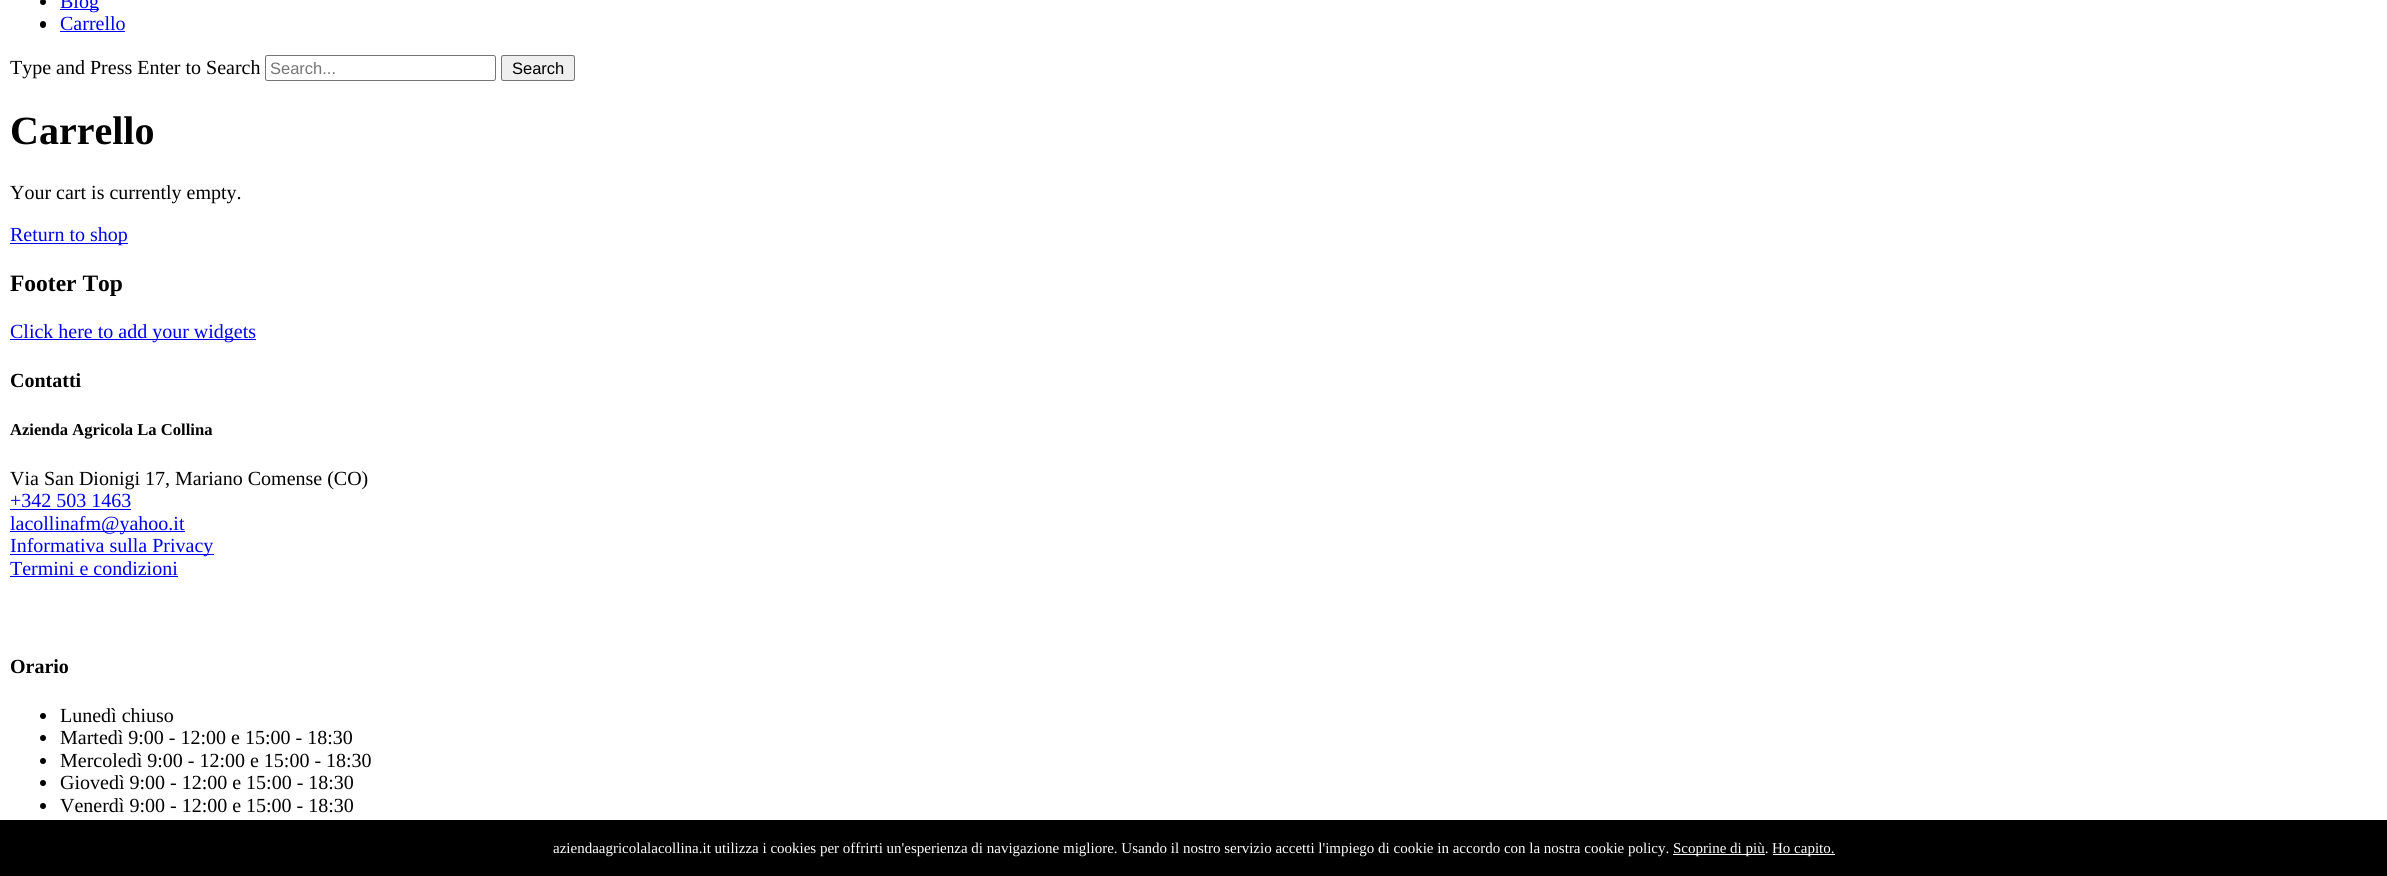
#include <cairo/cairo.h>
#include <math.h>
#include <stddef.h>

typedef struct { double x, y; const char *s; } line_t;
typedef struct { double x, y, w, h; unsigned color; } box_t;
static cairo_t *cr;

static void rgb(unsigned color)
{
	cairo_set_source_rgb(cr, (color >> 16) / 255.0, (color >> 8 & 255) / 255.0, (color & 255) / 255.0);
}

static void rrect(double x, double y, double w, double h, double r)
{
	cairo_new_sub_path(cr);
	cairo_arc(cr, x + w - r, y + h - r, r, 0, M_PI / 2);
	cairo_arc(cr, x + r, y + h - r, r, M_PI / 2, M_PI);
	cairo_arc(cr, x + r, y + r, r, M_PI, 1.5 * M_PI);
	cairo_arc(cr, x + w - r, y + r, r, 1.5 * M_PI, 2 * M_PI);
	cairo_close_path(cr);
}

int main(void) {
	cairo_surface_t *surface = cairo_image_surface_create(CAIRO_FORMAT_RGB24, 2387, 876);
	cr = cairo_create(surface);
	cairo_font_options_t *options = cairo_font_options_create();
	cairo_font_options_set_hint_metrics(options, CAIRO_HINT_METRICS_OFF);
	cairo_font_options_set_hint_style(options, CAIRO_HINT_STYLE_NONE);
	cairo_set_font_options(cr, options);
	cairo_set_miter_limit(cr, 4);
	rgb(0xffffff);
	cairo_paint(cr);
	rgb(0x000000);
	cairo_arc(cr, 43, 2, 3, 0, 2 * M_PI);
	cairo_fill(cr);
	rgb(0x0000ee);
	cairo_rectangle(cr, 60, 9, 39, 1);
	cairo_fill(cr);
	rgb(0x000000);
	rrect(40, 21, 6, 7, 3);
	cairo_fill(cr);
	rgb(0x0000ee);
	cairo_rectangle(cr, 60, 31, 65, 1);
	cairo_fill(cr);
	rrect(265.5, 55.5, 230, 25, 2);
	rgb(0x767676);
	cairo_set_line_width(cr, 1);
	cairo_stroke(cr);
	rgb(0xefefef);
	rrect(501.5, 55.5, 73, 25, 2);
	cairo_fill_preserve(cr);
	rgb(0x767676);
	cairo_stroke(cr);
	{
		static const box_t items[] = {
			{10, 243, 118, 1, 0x0000ee},
			{10, 339, 246, 1, 0x0000ee},
			{10, 509, 121, 1, 0x0000ee},
			{10, 531, 175, 1, 0x0000ee},
			{10, 554, 204, 1, 0x0000ee},
			{10, 576, 168, 1, 0x0000ee},
		};
		for (size_t i = 0; i < sizeof items / sizeof *items; i++) {
			rgb(items[i].color);
			cairo_rectangle(cr, items[i].x, items[i].y, items[i].w, items[i].h);
			cairo_fill(cr);
		}
	}
	rgb(0x000000);
	cairo_arc(cr, 43, 716, 3, 0, 2 * M_PI);
	cairo_fill(cr);
	cairo_arc(cr, 43, 738, 3, 0, 2 * M_PI);
	cairo_fill(cr);
	cairo_arc(cr, 43, 761, 3, 0, 2 * M_PI);
	cairo_fill(cr);
	cairo_arc(cr, 43, 783, 3, 0, 2 * M_PI);
	cairo_fill(cr);
	cairo_arc(cr, 43, 806, 3, 0, 2 * M_PI);
	cairo_fill(cr);
	{
		static const box_t items[] = {
			{0, 820, 2387, 56, 0x000000},
			{1673, 854, 92, 1, 0xffffff},
			{1773, 854, 62, 1, 0xffffff},
		};
		for (size_t i = 0; i < sizeof items / sizeof *items; i++) {
			rgb(items[i].color);
			cairo_rectangle(cr, items[i].x, items[i].y, items[i].w, items[i].h);
			cairo_fill(cr);
		}
	}
	cairo_select_font_face(cr, "Liberation Serif", CAIRO_FONT_SLANT_NORMAL, CAIRO_FONT_WEIGHT_NORMAL);
	cairo_set_font_size(cr, 20);
	rgb(0x0000ee);
	cairo_move_to(cr, 60, 8);
	cairo_show_text(cr, "Blog");
	cairo_move_to(cr, 60, 30);
	cairo_show_text(cr, "Carrello");
	rgb(0x000000);
	cairo_move_to(cr, 10, 74);
	cairo_show_text(cr, "Type and Press Enter to Search");
	cairo_select_font_face(cr, "Liberation Sans", CAIRO_FONT_SLANT_NORMAL, CAIRO_FONT_WEIGHT_NORMAL);
	cairo_set_font_size(cr, 16.5);
	rgb(0x757575);
	cairo_move_to(cr, 270, 74);
	cairo_show_text(cr, "Search...");
	rgb(0x000000);
	cairo_move_to(cr, 512, 74);
	cairo_show_text(cr, "Search");
	cairo_select_font_face(cr, "Liberation Serif", CAIRO_FONT_SLANT_NORMAL, CAIRO_FONT_WEIGHT_BOLD);
	cairo_set_font_size(cr, 40);
	cairo_move_to(cr, 10, 144);
	cairo_show_text(cr, "Carrello");
	cairo_select_font_face(cr, "Liberation Serif", CAIRO_FONT_SLANT_NORMAL, CAIRO_FONT_WEIGHT_NORMAL);
	cairo_set_font_size(cr, 20);
	cairo_move_to(cr, 10, 199);
	cairo_show_text(cr, "Your cart is currently empty.");
	rgb(0x0000ee);
	cairo_move_to(cr, 10, 241);
	cairo_show_text(cr, "Return to shop");
	cairo_select_font_face(cr, "Liberation Serif", CAIRO_FONT_SLANT_NORMAL, CAIRO_FONT_WEIGHT_BOLD);
	cairo_set_font_size(cr, 23.5);
	rgb(0x000000);
	cairo_move_to(cr, 10, 291);
	cairo_show_text(cr, "Footer Top");
	cairo_select_font_face(cr, "Liberation Serif", CAIRO_FONT_SLANT_NORMAL, CAIRO_FONT_WEIGHT_NORMAL);
	cairo_set_font_size(cr, 20);
	rgb(0x0000ee);
	cairo_move_to(cr, 10, 338);
	cairo_show_text(cr, "Click here to add your widgets");
	cairo_select_font_face(cr, "Liberation Serif", CAIRO_FONT_SLANT_NORMAL, CAIRO_FONT_WEIGHT_BOLD);
	rgb(0x000000);
	cairo_move_to(cr, 10, 387);
	cairo_show_text(cr, "Contatti");
	cairo_set_font_size(cr, 16.6);
	cairo_move_to(cr, 10, 435);
	cairo_show_text(cr, "Azienda Agricola La Collina");
	cairo_select_font_face(cr, "Liberation Serif", CAIRO_FONT_SLANT_NORMAL, CAIRO_FONT_WEIGHT_NORMAL);
	cairo_set_font_size(cr, 20);
	cairo_move_to(cr, 10, 485);
	cairo_show_text(cr, "Via San Dionigi 17, Mariano Comense (CO)");
	rgb(0x0000ee);
	{
		static const line_t items[] = {
			{10, 507, "+342 503 1463"},
			{10, 530, "lacollinafm@yahoo.it"},
			{10, 552, "Informativa sulla Privacy"},
			{10, 575, "Termini e condizioni"},
		};
		for (size_t i = 0; i < sizeof items / sizeof *items; i++) {
			cairo_move_to(cr, items[i].x, items[i].y);
			cairo_show_text(cr, items[i].s);
		}
	}
	cairo_select_font_face(cr, "Liberation Serif", CAIRO_FONT_SLANT_NORMAL, CAIRO_FONT_WEIGHT_BOLD);
	rgb(0x000000);
	cairo_move_to(cr, 10, 673);
	cairo_show_text(cr, "Orario");
	cairo_select_font_face(cr, "Liberation Serif", CAIRO_FONT_SLANT_NORMAL, CAIRO_FONT_WEIGHT_NORMAL);
	{
		static const line_t items[] = {
			{60, 722, "Lunedì chiuso"},
			{60, 744, "Martedì 9:00 - 12:00 e 15:00 - 18:30"},
			{60, 767, "Mercoledì 9:00 - 12:00 e 15:00 - 18:30"},
			{60, 789, "Giovedì 9:00 - 12:00 e 15:00 - 18:30"},
			{60, 812, "Venerdì 9:00 - 12:00 e 15:00 - 18:30"},
		};
		for (size_t i = 0; i < sizeof items / sizeof *items; i++) {
			cairo_move_to(cr, items[i].x, items[i].y);
			cairo_show_text(cr, items[i].s);
		}
	}
	cairo_set_font_size(cr, 15);
	rgb(0xffffff);
	{
		static const line_t items[] = {
			{553, 853, "aziendaagricolalacollina.it utilizza i cookies per offrirti un'esperienza di navigazione migliore. Usando il nostro servizio accetti l'impiego di cookie in accordo con la nostra cookie policy."},
			{1673, 853, "Scoprine di più."},
			{1772, 853, "Ho capito."},
		};
		for (size_t i = 0; i < sizeof items / sizeof *items; i++) {
			cairo_move_to(cr, items[i].x, items[i].y);
			cairo_show_text(cr, items[i].s);
		}
	}
	cairo_surface_write_to_png(surface, "page.png");
	cairo_font_options_destroy(options);
	cairo_destroy(cr);
	cairo_surface_destroy(surface);
	return 0;
}
